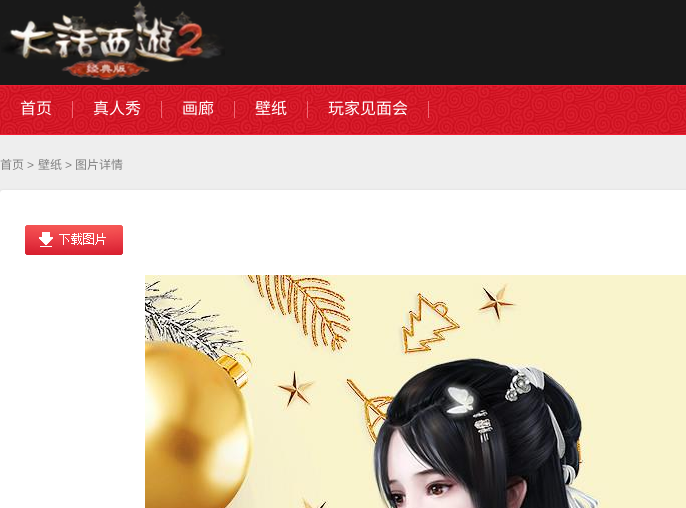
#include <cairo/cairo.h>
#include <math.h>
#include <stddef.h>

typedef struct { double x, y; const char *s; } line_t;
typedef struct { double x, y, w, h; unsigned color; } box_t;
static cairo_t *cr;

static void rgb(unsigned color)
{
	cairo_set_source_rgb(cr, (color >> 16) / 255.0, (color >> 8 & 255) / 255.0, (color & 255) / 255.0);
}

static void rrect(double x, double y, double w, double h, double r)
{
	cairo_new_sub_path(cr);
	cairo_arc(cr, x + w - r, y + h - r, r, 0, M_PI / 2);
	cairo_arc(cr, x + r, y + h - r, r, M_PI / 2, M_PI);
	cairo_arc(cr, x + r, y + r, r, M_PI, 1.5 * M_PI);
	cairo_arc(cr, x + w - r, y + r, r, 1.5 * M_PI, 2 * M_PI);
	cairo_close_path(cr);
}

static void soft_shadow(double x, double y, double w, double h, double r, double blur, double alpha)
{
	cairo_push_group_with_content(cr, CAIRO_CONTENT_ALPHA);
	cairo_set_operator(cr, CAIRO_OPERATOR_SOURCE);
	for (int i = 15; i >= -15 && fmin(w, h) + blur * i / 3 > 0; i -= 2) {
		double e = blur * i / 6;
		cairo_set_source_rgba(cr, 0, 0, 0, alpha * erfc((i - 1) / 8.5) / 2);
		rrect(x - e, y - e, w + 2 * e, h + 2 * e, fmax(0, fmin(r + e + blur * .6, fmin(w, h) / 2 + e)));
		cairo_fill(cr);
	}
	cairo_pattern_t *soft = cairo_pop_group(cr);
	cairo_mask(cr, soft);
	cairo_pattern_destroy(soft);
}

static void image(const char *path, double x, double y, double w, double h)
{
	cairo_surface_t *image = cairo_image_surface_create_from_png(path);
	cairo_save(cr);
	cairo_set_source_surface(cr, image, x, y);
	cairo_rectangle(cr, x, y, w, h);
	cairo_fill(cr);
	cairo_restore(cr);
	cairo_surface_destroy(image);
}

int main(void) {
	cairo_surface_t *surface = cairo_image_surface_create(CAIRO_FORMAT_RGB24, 686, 508);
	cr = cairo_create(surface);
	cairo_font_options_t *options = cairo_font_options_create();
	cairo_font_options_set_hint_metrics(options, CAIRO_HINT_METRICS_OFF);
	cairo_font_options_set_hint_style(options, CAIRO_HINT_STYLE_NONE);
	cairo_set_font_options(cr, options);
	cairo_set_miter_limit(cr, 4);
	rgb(0xeeeeee);
	cairo_paint(cr);
	rgb(0x191919);
	cairo_rectangle(cr, 0, 0, 686, 85);
	cairo_fill(cr);
	image("img/1.png", 1, 0, 224, 80);
	image("img/2.png", 0, 85, 686, 50);
	{
		static const box_t items[] = {
			{72, 101, 1, 17, 0xf06a76},
			{161, 101, 1, 17, 0xf06a76},
			{234, 101, 1, 17, 0xf06a76},
			{307, 101, 1, 17, 0xf06a76},
			{428, 101, 1, 17, 0xf06a76},
		};
		for (size_t i = 0; i < sizeof items / sizeof *items; i++) {
			rgb(items[i].color);
			cairo_rectangle(cr, items[i].x, items[i].y, items[i].w, items[i].h);
			cairo_fill(cr);
		}
	}
	rgb(0x040000);
	soft_shadow(0, 191, 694, 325, 3, 1.5, 0.18);
	rgb(0xffffff);
	rrect(0, 190, 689, 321, 3);
	cairo_fill(cr);
	image("img/3.png", 25, 225, 98, 30);
	image("img/4.png", 145, 275, 541, 233);
	cairo_select_font_face(cr, "Noto Sans CJK SC", CAIRO_FONT_SLANT_NORMAL, CAIRO_FONT_WEIGHT_NORMAL);
	cairo_set_font_size(cr, 16);
	{
		static const line_t items[] = {
			{20, 114, "首页"},
			{93, 114, "真人秀"},
			{182, 114, "画廊"},
			{255, 114, "壁纸"},
			{328, 114, "玩家见面会"},
		};
		for (size_t i = 0; i < sizeof items / sizeof *items; i++) {
			cairo_move_to(cr, items[i].x, items[i].y);
			cairo_show_text(cr, items[i].s);
		}
	}
	cairo_set_font_size(cr, 12);
	rgb(0x808080);
	cairo_move_to(cr, 0, 169);
	cairo_show_text(cr, "首页");
	cairo_select_font_face(cr, "Liberation Sans", CAIRO_FONT_SLANT_NORMAL, CAIRO_FONT_WEIGHT_NORMAL);
	cairo_move_to(cr, 27, 169);
	cairo_show_text(cr, ">");
	cairo_select_font_face(cr, "Noto Sans CJK SC", CAIRO_FONT_SLANT_NORMAL, CAIRO_FONT_WEIGHT_NORMAL);
	cairo_move_to(cr, 38, 169);
	cairo_show_text(cr, "壁纸");
	cairo_select_font_face(cr, "Liberation Sans", CAIRO_FONT_SLANT_NORMAL, CAIRO_FONT_WEIGHT_NORMAL);
	cairo_move_to(cr, 65, 169);
	cairo_show_text(cr, ">");
	cairo_select_font_face(cr, "Noto Sans CJK SC", CAIRO_FONT_SLANT_NORMAL, CAIRO_FONT_WEIGHT_NORMAL);
	cairo_move_to(cr, 75, 169);
	cairo_show_text(cr, "图片详情");
	cairo_surface_write_to_png(surface, "page.png");
	cairo_font_options_destroy(options);
	cairo_destroy(cr);
	cairo_surface_destroy(surface);
	return 0;
}
